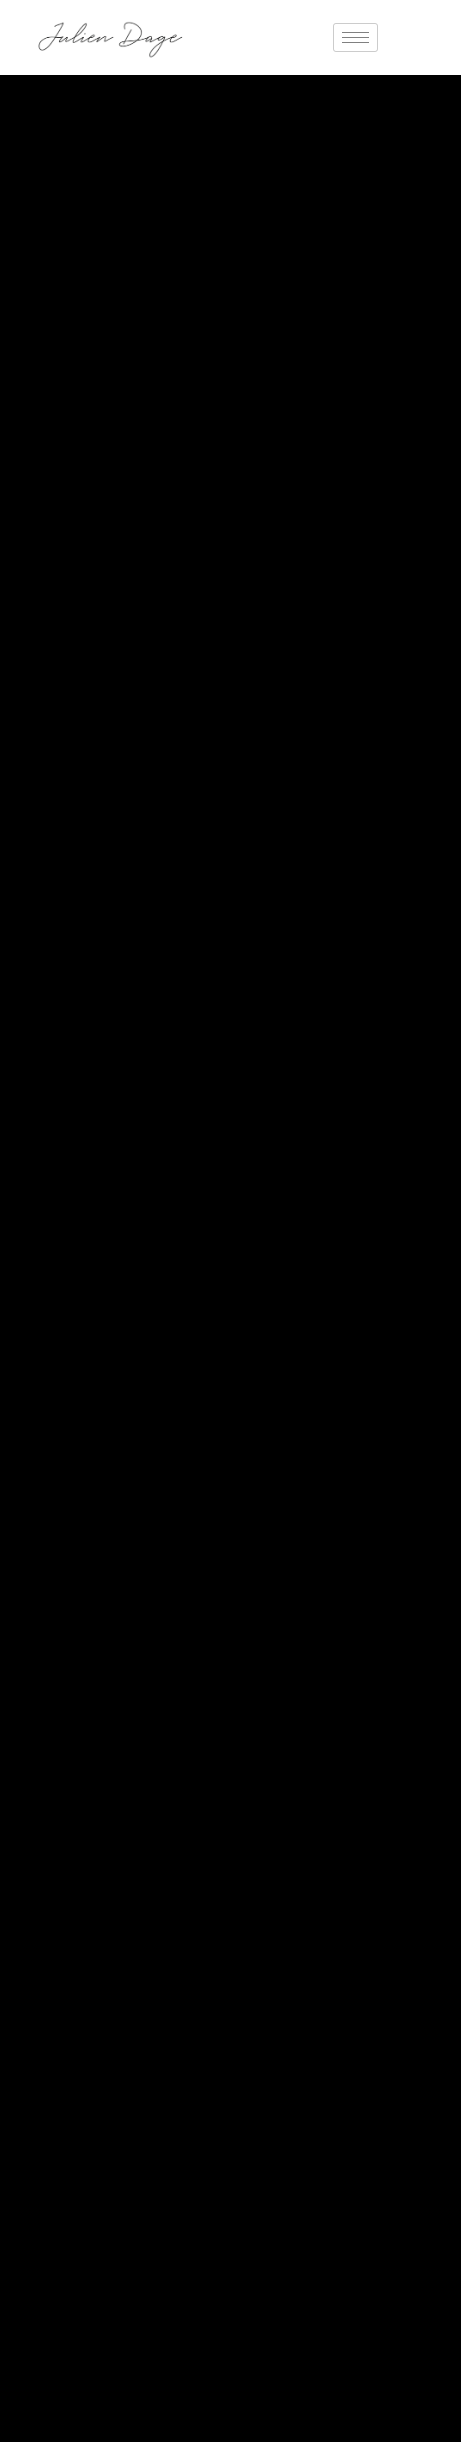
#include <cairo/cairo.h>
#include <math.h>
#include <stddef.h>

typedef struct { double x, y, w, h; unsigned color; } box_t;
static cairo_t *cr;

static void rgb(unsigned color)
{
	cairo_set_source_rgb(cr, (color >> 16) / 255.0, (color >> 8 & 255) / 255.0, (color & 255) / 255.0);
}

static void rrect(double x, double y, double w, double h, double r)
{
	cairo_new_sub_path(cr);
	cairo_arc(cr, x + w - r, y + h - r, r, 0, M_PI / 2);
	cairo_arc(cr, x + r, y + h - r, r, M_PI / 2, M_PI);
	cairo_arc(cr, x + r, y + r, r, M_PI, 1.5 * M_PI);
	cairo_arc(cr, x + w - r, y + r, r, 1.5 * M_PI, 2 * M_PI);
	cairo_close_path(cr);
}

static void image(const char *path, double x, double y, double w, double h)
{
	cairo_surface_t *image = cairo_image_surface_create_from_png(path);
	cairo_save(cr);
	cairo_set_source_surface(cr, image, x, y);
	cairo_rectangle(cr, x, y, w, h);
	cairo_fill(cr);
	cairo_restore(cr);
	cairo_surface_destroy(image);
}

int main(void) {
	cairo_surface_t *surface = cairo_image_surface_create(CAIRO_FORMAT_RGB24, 461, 2442);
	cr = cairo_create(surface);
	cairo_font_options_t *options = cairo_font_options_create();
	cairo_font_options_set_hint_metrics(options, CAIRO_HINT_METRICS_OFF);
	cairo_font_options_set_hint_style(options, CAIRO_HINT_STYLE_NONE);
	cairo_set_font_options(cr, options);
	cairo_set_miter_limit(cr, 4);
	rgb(0xffffff);
	cairo_paint(cr);
	image("img/1.png", 38, 21, 145, 37);
	rrect(333.5, 23.5, 44, 28, 2.5);
	rgb(0xcccccc);
	cairo_set_line_width(cr, 1);
	cairo_stroke(cr);
	{
		static const box_t items[] = {
			{342, 32, 27, 1, 0x808080},
			{342, 37, 27, 1, 0x808080},
			{342, 42, 27, 1, 0x808080},
			{0, 75, 461, 2367, 0x000000},
		};
		for (size_t i = 0; i < sizeof items / sizeof *items; i++) {
			rgb(items[i].color);
			cairo_rectangle(cr, items[i].x, items[i].y, items[i].w, items[i].h);
			cairo_fill(cr);
		}
	}
	cairo_surface_write_to_png(surface, "page.png");
	cairo_font_options_destroy(options);
	cairo_destroy(cr);
	cairo_surface_destroy(surface);
	return 0;
}
